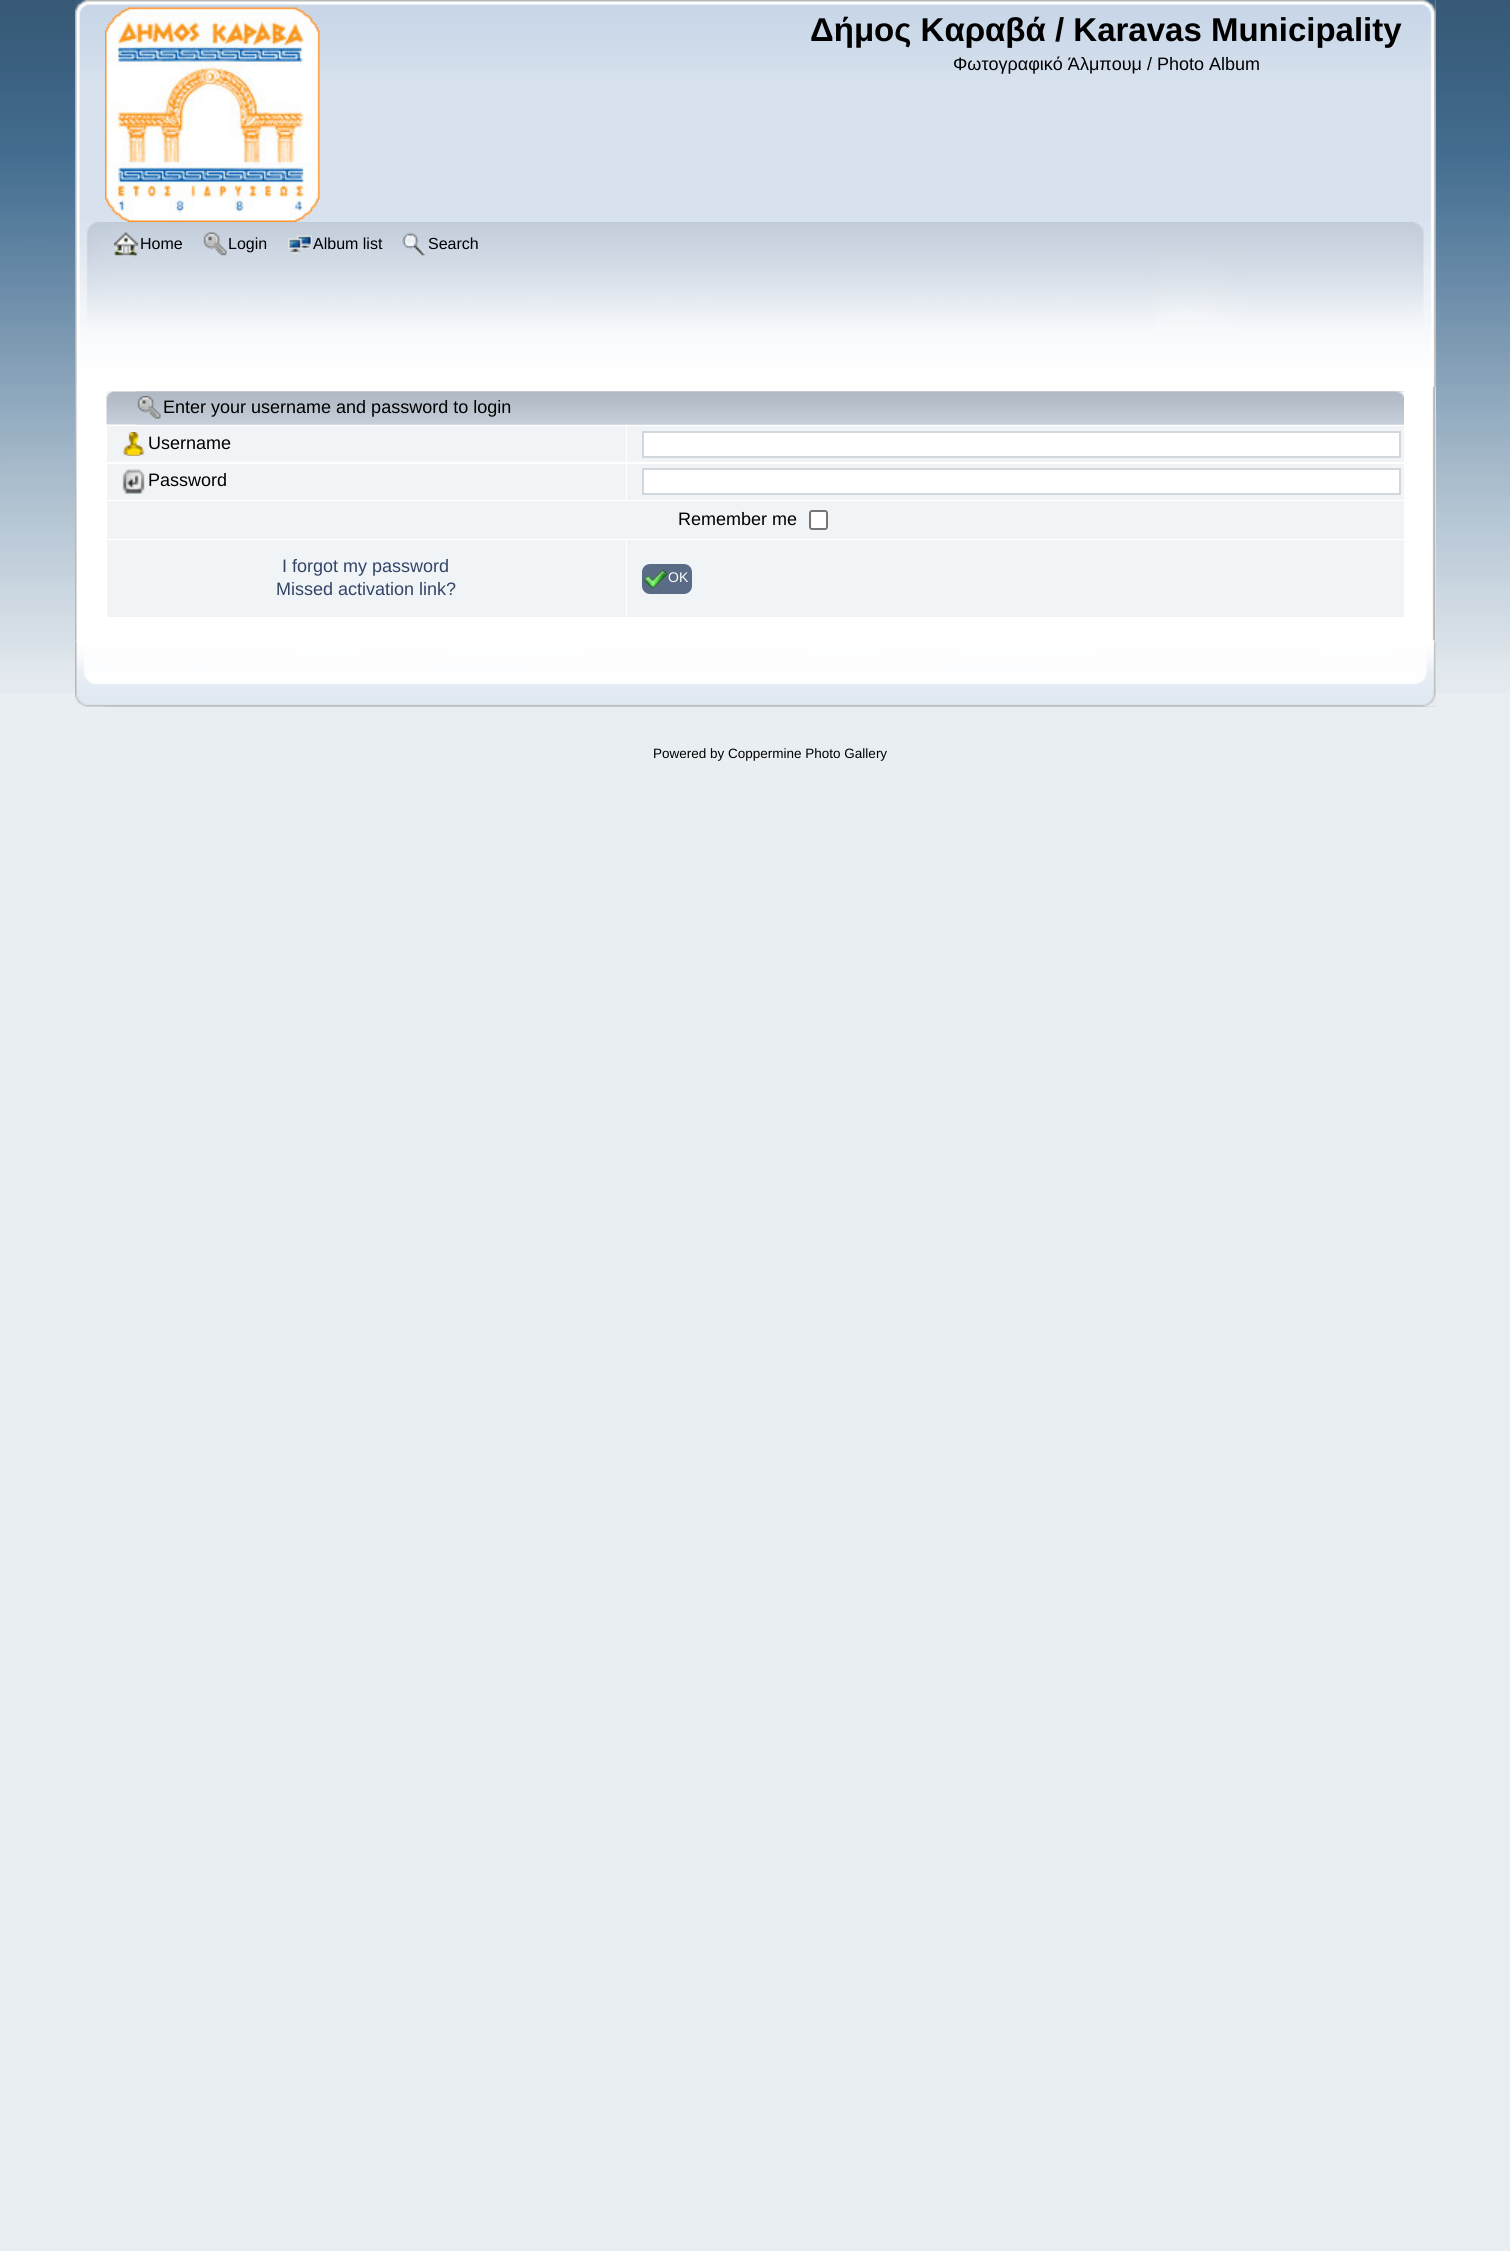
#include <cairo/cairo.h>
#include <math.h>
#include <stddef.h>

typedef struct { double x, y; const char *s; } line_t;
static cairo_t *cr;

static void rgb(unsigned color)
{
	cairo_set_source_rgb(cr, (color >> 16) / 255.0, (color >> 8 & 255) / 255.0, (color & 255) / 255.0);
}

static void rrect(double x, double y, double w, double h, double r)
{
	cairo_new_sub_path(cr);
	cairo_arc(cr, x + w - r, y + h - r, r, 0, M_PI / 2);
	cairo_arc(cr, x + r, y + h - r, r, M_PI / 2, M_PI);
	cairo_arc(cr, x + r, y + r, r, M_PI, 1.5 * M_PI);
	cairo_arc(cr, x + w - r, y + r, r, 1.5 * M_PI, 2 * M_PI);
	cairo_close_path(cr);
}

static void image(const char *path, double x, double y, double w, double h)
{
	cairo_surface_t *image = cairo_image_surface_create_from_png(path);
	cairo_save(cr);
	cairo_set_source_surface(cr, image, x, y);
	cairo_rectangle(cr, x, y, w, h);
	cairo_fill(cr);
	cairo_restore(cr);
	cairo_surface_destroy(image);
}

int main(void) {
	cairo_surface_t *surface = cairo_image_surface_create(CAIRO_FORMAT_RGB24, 1510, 2251);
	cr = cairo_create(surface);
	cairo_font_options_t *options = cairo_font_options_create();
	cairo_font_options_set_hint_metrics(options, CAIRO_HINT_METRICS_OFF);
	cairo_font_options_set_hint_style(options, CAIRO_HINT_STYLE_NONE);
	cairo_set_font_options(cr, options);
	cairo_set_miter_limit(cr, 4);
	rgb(0xe9eef2);
	cairo_paint(cr);
	image("img/1.png", 0, 0, 1510, 693);
	image("img/2.png", 75, 0, 1361, 222);
	image("img/3.png", 1423, 0, 13, 222);
	image("img/4.png", 105, 7, 215, 215);
	image("img/5.png", 75, 222, 1361, 165);
	image("img/6.png", 1414, 222, 22, 165);
	image("img/7.png", 114, 232, 24, 25);
	image("img/8.png", 203, 232, 24, 24);
	image("img/9.png", 288, 235, 24, 19);
	image("img/10.png", 402, 232, 24, 24);
	rgb(0xffffff);
	cairo_rectangle(cr, 75, 387, 1361, 254);
	cairo_fill(cr);
	image("img/11.png", 75, 387, 2, 254);
	image("img/12.png", 1432, 387, 4, 254);
	image("img/13.png", 106, 391, 1298, 34);
	image("img/14.png", 136, 391, 1268, 34);
	image("img/15.png", 137, 396, 24, 23);
	rgb(0xf0f4f7);
	cairo_rectangle(cr, 107, 426, 519, 36);
	cairo_fill(cr);
	image("img/16.png", 122, 432, 23, 24);
	cairo_rectangle(cr, 627, 426, 777, 36);
	cairo_fill(cr);
	rgb(0xffffff);
	cairo_rectangle(cr, 643, 432, 757, 25);
	cairo_fill_preserve(cr);
	rgb(0xd1d7dc);
	cairo_stroke(cr);
	rgb(0xf0f4f7);
	cairo_rectangle(cr, 107, 464, 519, 36);
	cairo_fill(cr);
	image("img/17.png", 122, 469, 23, 25);
	cairo_rectangle(cr, 627, 464, 777, 36);
	cairo_fill(cr);
	rgb(0xffffff);
	cairo_rectangle(cr, 643, 469, 757, 25);
	cairo_fill_preserve(cr);
	rgb(0xd1d7dc);
	cairo_stroke(cr);
	rgb(0xf0f4f7);
	cairo_rectangle(cr, 107, 501, 1297, 38);
	cairo_fill(cr);
	rgb(0xffffff);
	rrect(810, 511, 17, 18, 2);
	cairo_fill_preserve(cr);
	rgb(0x767676);
	cairo_stroke(cr);
	rgb(0xf0f4f7);
	cairo_rectangle(cr, 107, 540, 519, 77);
	cairo_fill(cr);
	cairo_rectangle(cr, 627, 540, 777, 77);
	cairo_fill(cr);
	rgb(0x5a6c85);
	rrect(643, 565, 48, 28, 7);
	cairo_fill_preserve(cr);
	cairo_stroke(cr);
	image("img/18.png", 643, 569, 25, 20);
	image("img/19.png", 75, 640, 1361, 67);
	image("img/20.png", 105, 640, 1331, 67);
	cairo_select_font_face(cr, "Liberation Sans", CAIRO_FONT_SLANT_NORMAL, CAIRO_FONT_WEIGHT_BOLD);
	cairo_set_font_size(cr, 33);
	rgb(0x000000);
	cairo_move_to(cr, 810, 41);
	cairo_show_text(cr, "Δήμος Καραβά / Karavas Municipality");
	cairo_select_font_face(cr, "Liberation Sans", CAIRO_FONT_SLANT_NORMAL, CAIRO_FONT_WEIGHT_NORMAL);
	cairo_set_font_size(cr, 18);
	cairo_move_to(cr, 953, 70);
	cairo_show_text(cr, "Φωτογραφικό Άλμπουμ / Photo Album");
	cairo_set_font_size(cr, 16);
	{
		static const line_t items[] = {
			{140, 249, "Home"},
			{228, 249, "Login"},
			{313, 249, "Album list"},
			{428, 249, "Search"},
		};
		for (size_t i = 0; i < sizeof items / sizeof *items; i++) {
			cairo_move_to(cr, items[i].x, items[i].y);
			cairo_show_text(cr, items[i].s);
		}
	}
	cairo_set_font_size(cr, 18);
	{
		static const line_t items[] = {
			{163, 413, "Enter your username and password to login"},
			{148, 449, "Username"},
			{148, 486, "Password"},
			{678, 525, "Remember me"},
		};
		for (size_t i = 0; i < sizeof items / sizeof *items; i++) {
			cairo_move_to(cr, items[i].x, items[i].y);
			cairo_show_text(cr, items[i].s);
		}
	}
	rgb(0x334466);
	cairo_move_to(cr, 282, 572);
	cairo_show_text(cr, "I forgot my password");
	cairo_move_to(cr, 276, 595);
	cairo_show_text(cr, "Missed activation link?");
	cairo_set_font_size(cr, 14);
	rgb(0xffffff);
	cairo_move_to(cr, 668, 582);
	cairo_show_text(cr, "OK");
	cairo_set_font_size(cr, 13.5);
	rgb(0x000000);
	cairo_move_to(cr, 653, 758);
	cairo_show_text(cr, "Powered by Coppermine Photo Gallery");
	cairo_surface_write_to_png(surface, "page.png");
	cairo_font_options_destroy(options);
	cairo_destroy(cr);
	cairo_surface_destroy(surface);
	return 0;
}
